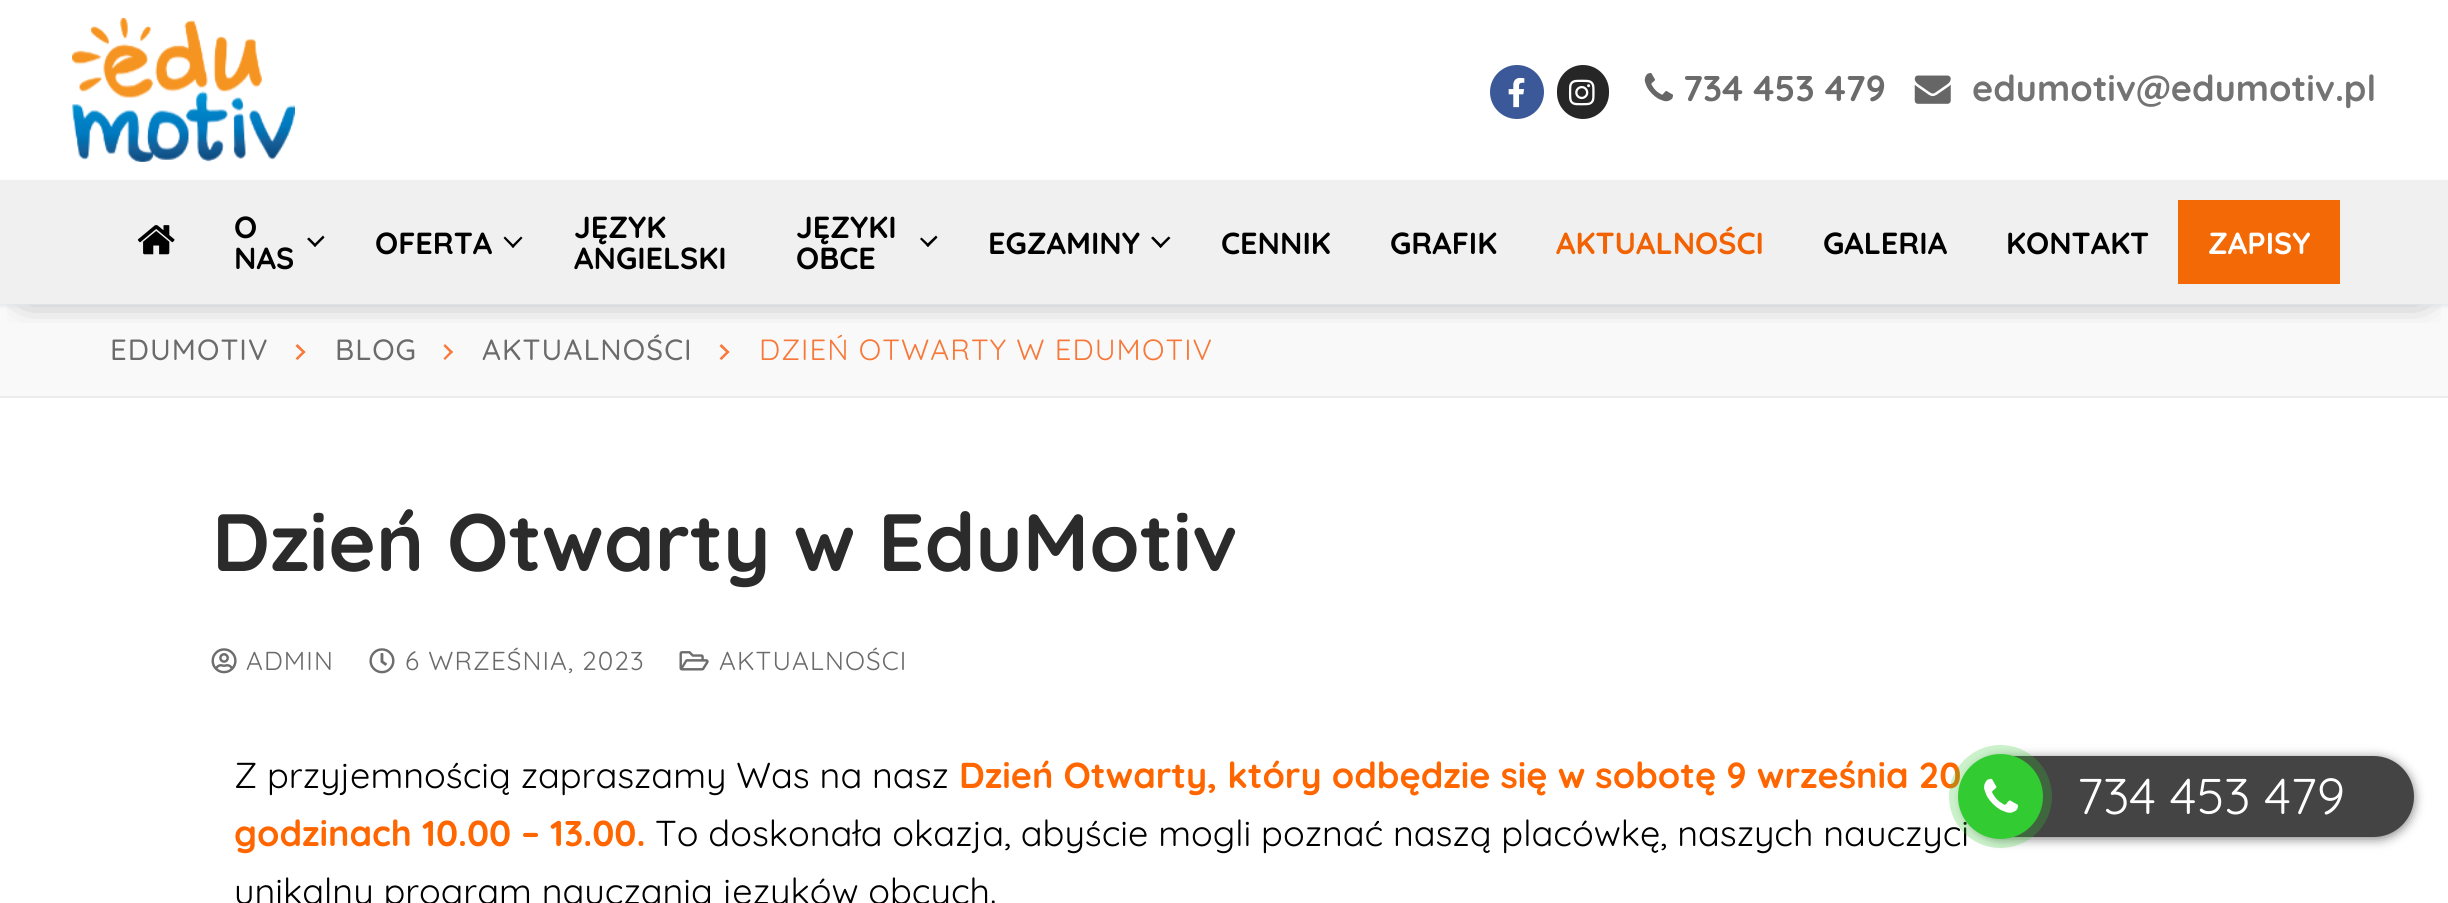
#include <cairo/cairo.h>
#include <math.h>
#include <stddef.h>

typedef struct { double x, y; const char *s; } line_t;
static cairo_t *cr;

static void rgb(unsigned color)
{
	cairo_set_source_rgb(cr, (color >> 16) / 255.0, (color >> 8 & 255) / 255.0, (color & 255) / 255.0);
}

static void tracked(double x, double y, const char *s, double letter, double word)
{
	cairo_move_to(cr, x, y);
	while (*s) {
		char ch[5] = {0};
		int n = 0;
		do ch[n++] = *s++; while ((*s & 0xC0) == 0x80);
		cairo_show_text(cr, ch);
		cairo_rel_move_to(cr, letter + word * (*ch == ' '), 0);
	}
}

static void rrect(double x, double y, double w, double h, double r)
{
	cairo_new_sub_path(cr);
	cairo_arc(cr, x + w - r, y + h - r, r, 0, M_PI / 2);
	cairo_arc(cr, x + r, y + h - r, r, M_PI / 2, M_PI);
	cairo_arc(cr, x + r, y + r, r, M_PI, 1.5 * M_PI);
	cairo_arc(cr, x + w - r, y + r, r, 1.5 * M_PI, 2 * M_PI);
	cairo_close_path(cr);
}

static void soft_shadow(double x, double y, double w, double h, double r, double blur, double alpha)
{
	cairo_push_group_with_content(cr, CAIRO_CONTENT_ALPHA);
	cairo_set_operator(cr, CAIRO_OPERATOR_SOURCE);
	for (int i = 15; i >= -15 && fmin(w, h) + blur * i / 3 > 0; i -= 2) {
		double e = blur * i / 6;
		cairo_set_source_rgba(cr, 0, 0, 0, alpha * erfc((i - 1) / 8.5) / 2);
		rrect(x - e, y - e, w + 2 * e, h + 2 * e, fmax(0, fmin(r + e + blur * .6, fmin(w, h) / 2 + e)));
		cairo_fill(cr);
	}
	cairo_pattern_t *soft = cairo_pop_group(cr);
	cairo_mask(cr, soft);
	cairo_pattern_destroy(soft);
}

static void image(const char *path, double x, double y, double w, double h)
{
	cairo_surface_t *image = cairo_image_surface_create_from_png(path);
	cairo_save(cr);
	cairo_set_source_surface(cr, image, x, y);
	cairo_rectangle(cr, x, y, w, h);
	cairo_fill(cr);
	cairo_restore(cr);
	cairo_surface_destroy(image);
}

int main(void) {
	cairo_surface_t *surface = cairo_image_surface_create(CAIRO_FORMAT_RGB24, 2448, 903);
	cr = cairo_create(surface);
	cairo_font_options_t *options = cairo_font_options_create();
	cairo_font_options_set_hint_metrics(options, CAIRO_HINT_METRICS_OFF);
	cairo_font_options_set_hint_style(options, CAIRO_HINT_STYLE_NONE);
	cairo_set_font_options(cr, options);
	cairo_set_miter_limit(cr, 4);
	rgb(0xffffff);
	cairo_paint(cr);
	rgb(0xf9f9f9);
	cairo_rectangle(cr, 0, 304, 2448, 92);
	cairo_fill(cr);
	cairo_save(cr);
	cairo_rectangle(cr, 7, 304, 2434, 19);
	cairo_clip(cr);
	rgb(0x000000);
	soft_shadow(27, 36, 2394, 250, 0, 18, 1);
	cairo_restore(cr);
	image("img/1.png", 72, 18, 223, 144);
	rgb(0x3b5998);
	cairo_arc(cr, 1517, 92, 27, 0, 2 * M_PI);
	cairo_fill(cr);
	image("img/2.png", 1508, 77, 17, 31);
	rgb(0x262626);
	rrect(1557, 65, 52, 54, 26);
	cairo_fill(cr);
	image("img/3.png", 1568, 79, 27, 27);
	image("img/4.png", 1644, 73, 29, 29);
	image("img/5.png", 1914, 75, 37, 29);
	rgb(0xe1e5ea);
	soft_shadow(0, 182, 2448, 124, 0, 2, 1);
	rgb(0xf0f0f0);
	cairo_rectangle(cr, 0, 180, 2448, 124);
	cairo_fill(cr);
	image("img/6.png", 137, 225, 38, 30);
	rgb(0x000000);
	cairo_new_path(cr);
	cairo_move_to(cr, 315, 247);
	cairo_line_to(cr, 307, 239);
	cairo_line_to(cr, 309, 237.5);
	cairo_line_to(cr, 316.5, 245);
	cairo_close_path(cr);
	cairo_fill(cr);
	cairo_new_path(cr);
	cairo_move_to(cr, 315, 247);
	cairo_line_to(cr, 313.5, 245);
	cairo_line_to(cr, 323, 235.5);
	cairo_line_to(cr, 324.5, 237.5);
	cairo_close_path(cr);
	cairo_fill(cr);
	cairo_new_path(cr);
	cairo_move_to(cr, 513, 248);
	cairo_line_to(cr, 503.5, 238);
	cairo_line_to(cr, 505, 236.5);
	cairo_line_to(cr, 514.5, 246);
	cairo_close_path(cr);
	cairo_fill(cr);
	cairo_new_path(cr);
	cairo_move_to(cr, 513, 248);
	cairo_line_to(cr, 511.5, 246);
	cairo_line_to(cr, 521, 236.5);
	cairo_line_to(cr, 522.5, 238);
	cairo_close_path(cr);
	cairo_fill(cr);
	cairo_new_path(cr);
	cairo_move_to(cr, 928, 247);
	cairo_line_to(cr, 920, 239);
	cairo_line_to(cr, 921.5, 237.5);
	cairo_line_to(cr, 929.5, 245);
	cairo_close_path(cr);
	cairo_fill(cr);
	cairo_new_path(cr);
	cairo_move_to(cr, 928, 247);
	cairo_line_to(cr, 926, 245);
	cairo_line_to(cr, 936, 235.5);
	cairo_line_to(cr, 937.5, 237.5);
	cairo_close_path(cr);
	cairo_fill(cr);
	cairo_new_path(cr);
	cairo_move_to(cr, 1160.5, 248);
	cairo_line_to(cr, 1151, 238);
	cairo_line_to(cr, 1153, 236.5);
	cairo_line_to(cr, 1162.5, 246);
	cairo_close_path(cr);
	cairo_fill(cr);
	cairo_new_path(cr);
	cairo_move_to(cr, 1160.5, 248);
	cairo_line_to(cr, 1159, 246);
	cairo_line_to(cr, 1168.5, 236.5);
	cairo_line_to(cr, 1170.5, 238);
	cairo_close_path(cr);
	cairo_fill(cr);
	rgb(0xf36906);
	cairo_rectangle(cr, 2178, 200, 162, 84);
	cairo_fill(cr);
	rgb(0xeaecee);
	cairo_rectangle(cr, 0, 396, 2448, 2);
	cairo_fill(cr);
	rgb(0xf77838);
	cairo_new_path(cr);
	cairo_move_to(cr, 305.5, 352);
	cairo_line_to(cr, 297.5, 360);
	cairo_line_to(cr, 295.5, 358.5);
	cairo_line_to(cr, 303.5, 350.5);
	cairo_close_path(cr);
	cairo_fill(cr);
	cairo_new_path(cr);
	cairo_move_to(cr, 305.5, 352);
	cairo_line_to(cr, 303.5, 353.5);
	cairo_line_to(cr, 295.5, 346);
	cairo_line_to(cr, 297.5, 344);
	cairo_close_path(cr);
	cairo_fill(cr);
	cairo_new_path(cr);
	cairo_move_to(cr, 453, 352);
	cairo_line_to(cr, 445, 360);
	cairo_line_to(cr, 443.5, 358.5);
	cairo_line_to(cr, 451, 350.5);
	cairo_close_path(cr);
	cairo_fill(cr);
	cairo_new_path(cr);
	cairo_move_to(cr, 453, 352);
	cairo_line_to(cr, 451, 353.5);
	cairo_line_to(cr, 443.5, 346);
	cairo_line_to(cr, 445, 344);
	cairo_close_path(cr);
	cairo_fill(cr);
	cairo_new_path(cr);
	cairo_move_to(cr, 729.5, 352);
	cairo_line_to(cr, 721.5, 360);
	cairo_line_to(cr, 719.5, 358.5);
	cairo_line_to(cr, 727.5, 350.5);
	cairo_close_path(cr);
	cairo_fill(cr);
	cairo_new_path(cr);
	cairo_move_to(cr, 729.5, 352);
	cairo_line_to(cr, 727.5, 353.5);
	cairo_line_to(cr, 719.5, 346);
	cairo_line_to(cr, 721.5, 344);
	cairo_close_path(cr);
	cairo_fill(cr);
	image("img/7.png", 211, 648, 26, 26);
	image("img/8.png", 369, 648, 26, 26);
	image("img/9.png", 679, 651, 30, 20);
	rgb(0x000000);
	soft_shadow(1964, 758, 450, 81, 40.5, 5.5, 0.5);
	cairo_select_font_face(cr, "Quicksand", CAIRO_FONT_SLANT_NORMAL, CAIRO_FONT_WEIGHT_BOLD);
	cairo_set_font_size(cr, 36);
	rgb(0x6b6b6b);
	cairo_move_to(cr, 1683, 101);
	cairo_show_text(cr, "734 453 479");
	rgb(0x737373);
	cairo_move_to(cr, 1972, 101);
	cairo_show_text(cr, "edumotiv@edumotiv.pl");
	cairo_set_font_size(cr, 30.5);
	rgb(0x000000);
	{
		static const line_t items[] = {
			{234, 238, "O"},
			{234, 269, "NAS"},
			{375, 254, "OFERTA"},
			{574, 238, "JĘZYK"},
			{574, 269, "ANGIELSKI"},
			{796, 238, "JĘZYKI"},
			{796, 269, "OBCE"},
			{988, 254, "EGZAMINY"},
			{1221, 254, "CENNIK"},
			{1390, 254, "GRAFIK"},
		};
		for (size_t i = 0; i < sizeof items / sizeof *items; i++) {
			cairo_move_to(cr, items[i].x, items[i].y);
			cairo_show_text(cr, items[i].s);
		}
	}
	rgb(0xf26202);
	cairo_move_to(cr, 1556, 254);
	cairo_show_text(cr, "AKTUALNOŚCI");
	rgb(0x000000);
	cairo_move_to(cr, 1823, 254);
	cairo_show_text(cr, "GALERIA");
	cairo_move_to(cr, 2006, 254);
	cairo_show_text(cr, "KONTAKT");
	rgb(0xffffff);
	cairo_move_to(cr, 2208, 254);
	cairo_show_text(cr, "ZAPISY");
	cairo_select_font_face(cr, "Quicksand Medium", CAIRO_FONT_SLANT_NORMAL, CAIRO_FONT_WEIGHT_NORMAL);
	cairo_set_font_size(cr, 29.25);
	rgb(0x6b6b6b);
	{
		static const line_t items[] = {
			{110, 360, "EDUMOTIV"},
			{335, 360, "BLOG"},
			{482, 360, "AKTUALNOŚCI"},
		};
		for (size_t i = 0; i < sizeof items / sizeof *items; i++) {
			tracked(items[i].x, items[i].y, items[i].s, 1.1, 0);
		}
	}
	cairo_select_font_face(cr, "Quicksand", CAIRO_FONT_SLANT_NORMAL, CAIRO_FONT_WEIGHT_NORMAL);
	rgb(0xf77838);
	tracked(759, 360, "DZIEŃ OTWARTY W EDUMOTIV", 1.1, 0);
	cairo_select_font_face(cr, "Quicksand", CAIRO_FONT_SLANT_NORMAL, CAIRO_FONT_WEIGHT_BOLD);
	cairo_set_font_size(cr, 81);
	rgb(0x2b2b2b);
	cairo_move_to(cr, 212, 571);
	cairo_show_text(cr, "Dzień Otwarty w EduMotiv");
	cairo_select_font_face(cr, "Quicksand", CAIRO_FONT_SLANT_NORMAL, CAIRO_FONT_WEIGHT_NORMAL);
	cairo_set_font_size(cr, 26);
	rgb(0x6b6b6b);
	{
		static const line_t items[] = {
			{246, 670, "ADMIN"},
			{405, 670, "6 WRZEŚNIA, 2023"},
			{719, 670, "AKTUALNOŚCI"},
		};
		for (size_t i = 0; i < sizeof items / sizeof *items; i++) {
			tracked(items[i].x, items[i].y, items[i].s, 1.1, 0);
		}
	}
	cairo_set_font_size(cr, 36);
	rgb(0x000000);
	cairo_move_to(cr, 234, 788);
	cairo_show_text(cr, "Z przyjemnością zapraszamy Was na nasz");
	cairo_select_font_face(cr, "Quicksand", CAIRO_FONT_SLANT_NORMAL, CAIRO_FONT_WEIGHT_BOLD);
	rgb(0xff6600);
	cairo_move_to(cr, 959, 788);
	cairo_show_text(cr, "Dzień Otwarty, który odbędzie się w sobotę 9 września 20");
	cairo_move_to(cr, 234, 846);
	cairo_show_text(cr, "godzinach 10.00 – 13.00.");
	cairo_select_font_face(cr, "Quicksand", CAIRO_FONT_SLANT_NORMAL, CAIRO_FONT_WEIGHT_NORMAL);
	rgb(0x000000);
	cairo_move_to(cr, 655, 846);
	cairo_show_text(cr, "To doskonała okazja, abyście mogli poznać naszą placówkę, naszych nauczyci");
	cairo_move_to(cr, 234, 904);
	cairo_show_text(cr, "unikalny program nauczania języków obcych.");
	rgb(0x444444);
	rrect(1964, 756, 450, 81, 40.5);
	cairo_fill(cr);
	rgb(0x33cc33);
	cairo_arc(cr, 2000.5, 796.5, 42.5, 0, 2 * M_PI);
	cairo_fill(cr);
	cairo_set_source_rgba(cr, 0.2, 0.8, 0.2, 0.25);
	cairo_arc(cr, 2000.5, 796.5, 51.5, 0, 2 * M_PI);
	cairo_fill(cr);
	image("img/10.png", 1984, 778, 34, 35);
	cairo_set_font_size(cr, 50.5);
	rgb(0xffffff);
	cairo_move_to(cr, 2077, 814);
	cairo_show_text(cr, "734 453 479");
	cairo_surface_write_to_png(surface, "page.png");
	cairo_font_options_destroy(options);
	cairo_destroy(cr);
	cairo_surface_destroy(surface);
	return 0;
}
